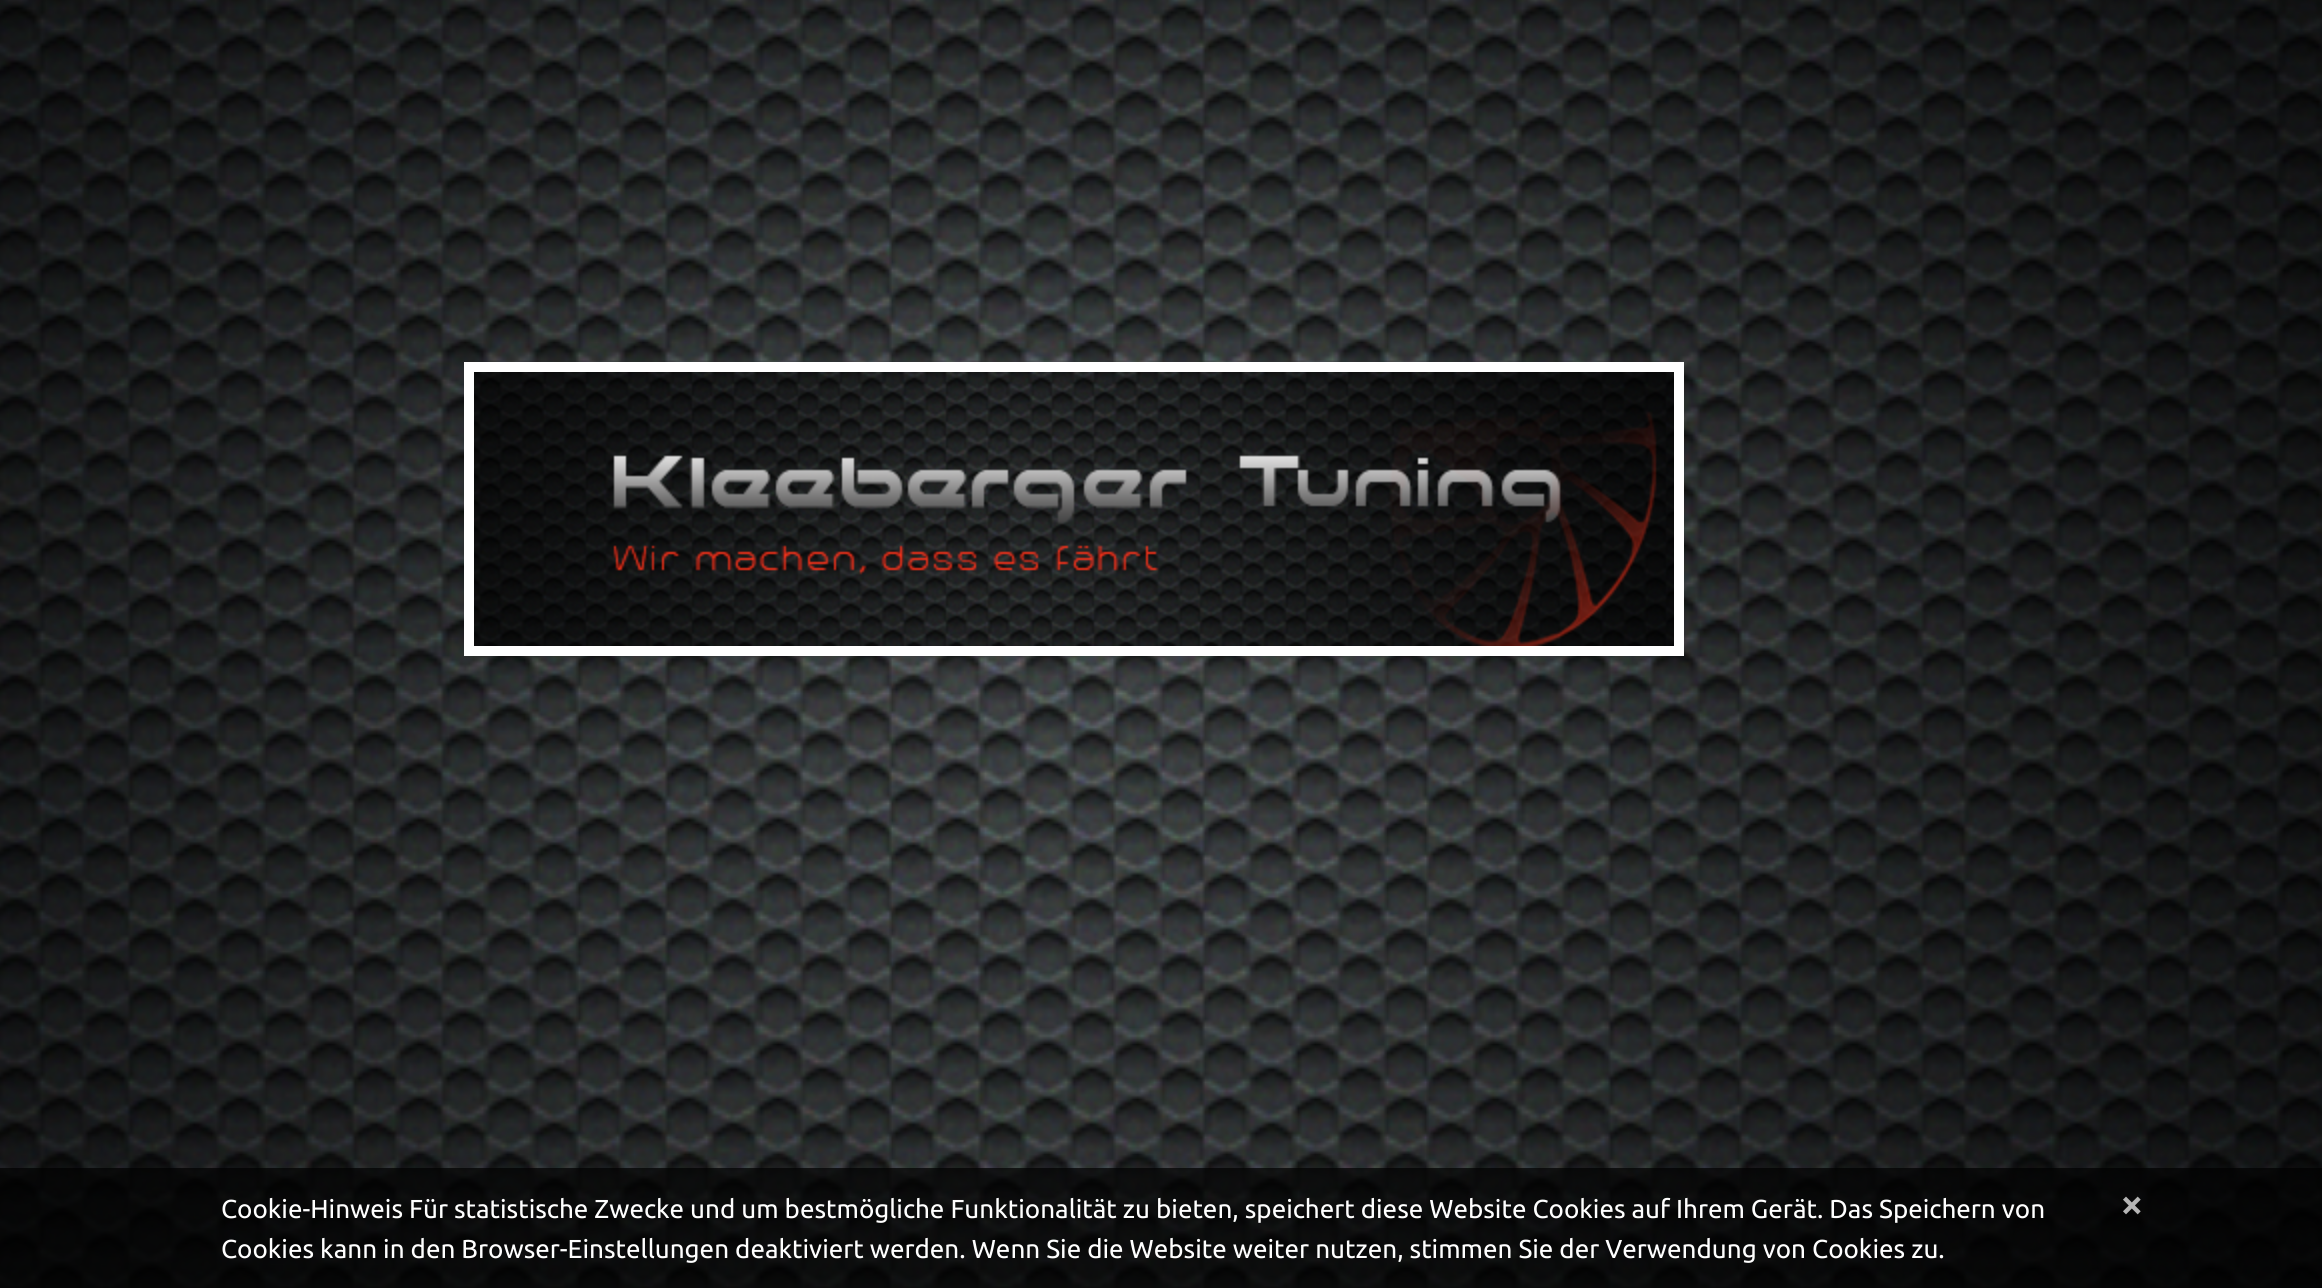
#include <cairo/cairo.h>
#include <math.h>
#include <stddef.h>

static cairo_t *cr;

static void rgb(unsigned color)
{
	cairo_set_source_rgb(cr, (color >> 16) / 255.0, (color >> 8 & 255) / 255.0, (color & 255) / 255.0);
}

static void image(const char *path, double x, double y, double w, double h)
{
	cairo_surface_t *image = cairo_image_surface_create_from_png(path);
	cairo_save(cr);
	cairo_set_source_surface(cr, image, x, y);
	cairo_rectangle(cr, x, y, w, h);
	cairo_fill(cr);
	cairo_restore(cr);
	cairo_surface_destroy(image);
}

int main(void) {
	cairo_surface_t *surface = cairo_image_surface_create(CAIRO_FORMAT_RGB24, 2322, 1288);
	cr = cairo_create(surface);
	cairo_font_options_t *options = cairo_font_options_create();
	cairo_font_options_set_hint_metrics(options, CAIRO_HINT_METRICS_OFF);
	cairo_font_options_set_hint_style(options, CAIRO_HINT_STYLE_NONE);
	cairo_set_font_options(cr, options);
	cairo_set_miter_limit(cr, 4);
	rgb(0xffffff);
	cairo_paint(cr);
	image("img/1.png", 0, 0, 2322, 1288);
	rgb(0xffffff);
	cairo_rectangle(cr, 464, 362, 1220, 294);
	cairo_fill(cr);
	image("img/2.png", 474, 372, 1200, 274);
	cairo_set_source_rgba(cr, 0, 0, 0, 0.7);
	cairo_rectangle(cr, 0, 1168, 2322, 120);
	cairo_fill(cr);
	cairo_select_font_face(cr, "Ubuntu", CAIRO_FONT_SLANT_NORMAL, CAIRO_FONT_WEIGHT_NORMAL);
	cairo_set_font_size(cr, 26);
	rgb(0xffffff);
	cairo_move_to(cr, 221, 1218);
	cairo_show_text(cr, "Cookie-Hinweis Für statistische Zwecke und um bestmögliche Funktionalität zu bieten, speichert diese Website Cookies auf Ihrem Gerät. Das Speichern von");
	cairo_select_font_face(cr, "Ubuntu", CAIRO_FONT_SLANT_NORMAL, CAIRO_FONT_WEIGHT_BOLD);
	cairo_set_font_size(cr, 40);
	rgb(0xb5b5b5);
	cairo_move_to(cr, 2120, 1218);
	cairo_show_text(cr, "×");
	cairo_select_font_face(cr, "Ubuntu", CAIRO_FONT_SLANT_NORMAL, CAIRO_FONT_WEIGHT_NORMAL);
	cairo_set_font_size(cr, 26);
	rgb(0xffffff);
	cairo_move_to(cr, 221, 1258);
	cairo_show_text(cr, "Cookies kann in den Browser-Einstellungen deaktiviert werden. Wenn Sie die Website weiter nutzen, stimmen Sie der Verwendung von Cookies zu.");
	cairo_surface_write_to_png(surface, "page.png");
	cairo_font_options_destroy(options);
	cairo_destroy(cr);
	cairo_surface_destroy(surface);
	return 0;
}
